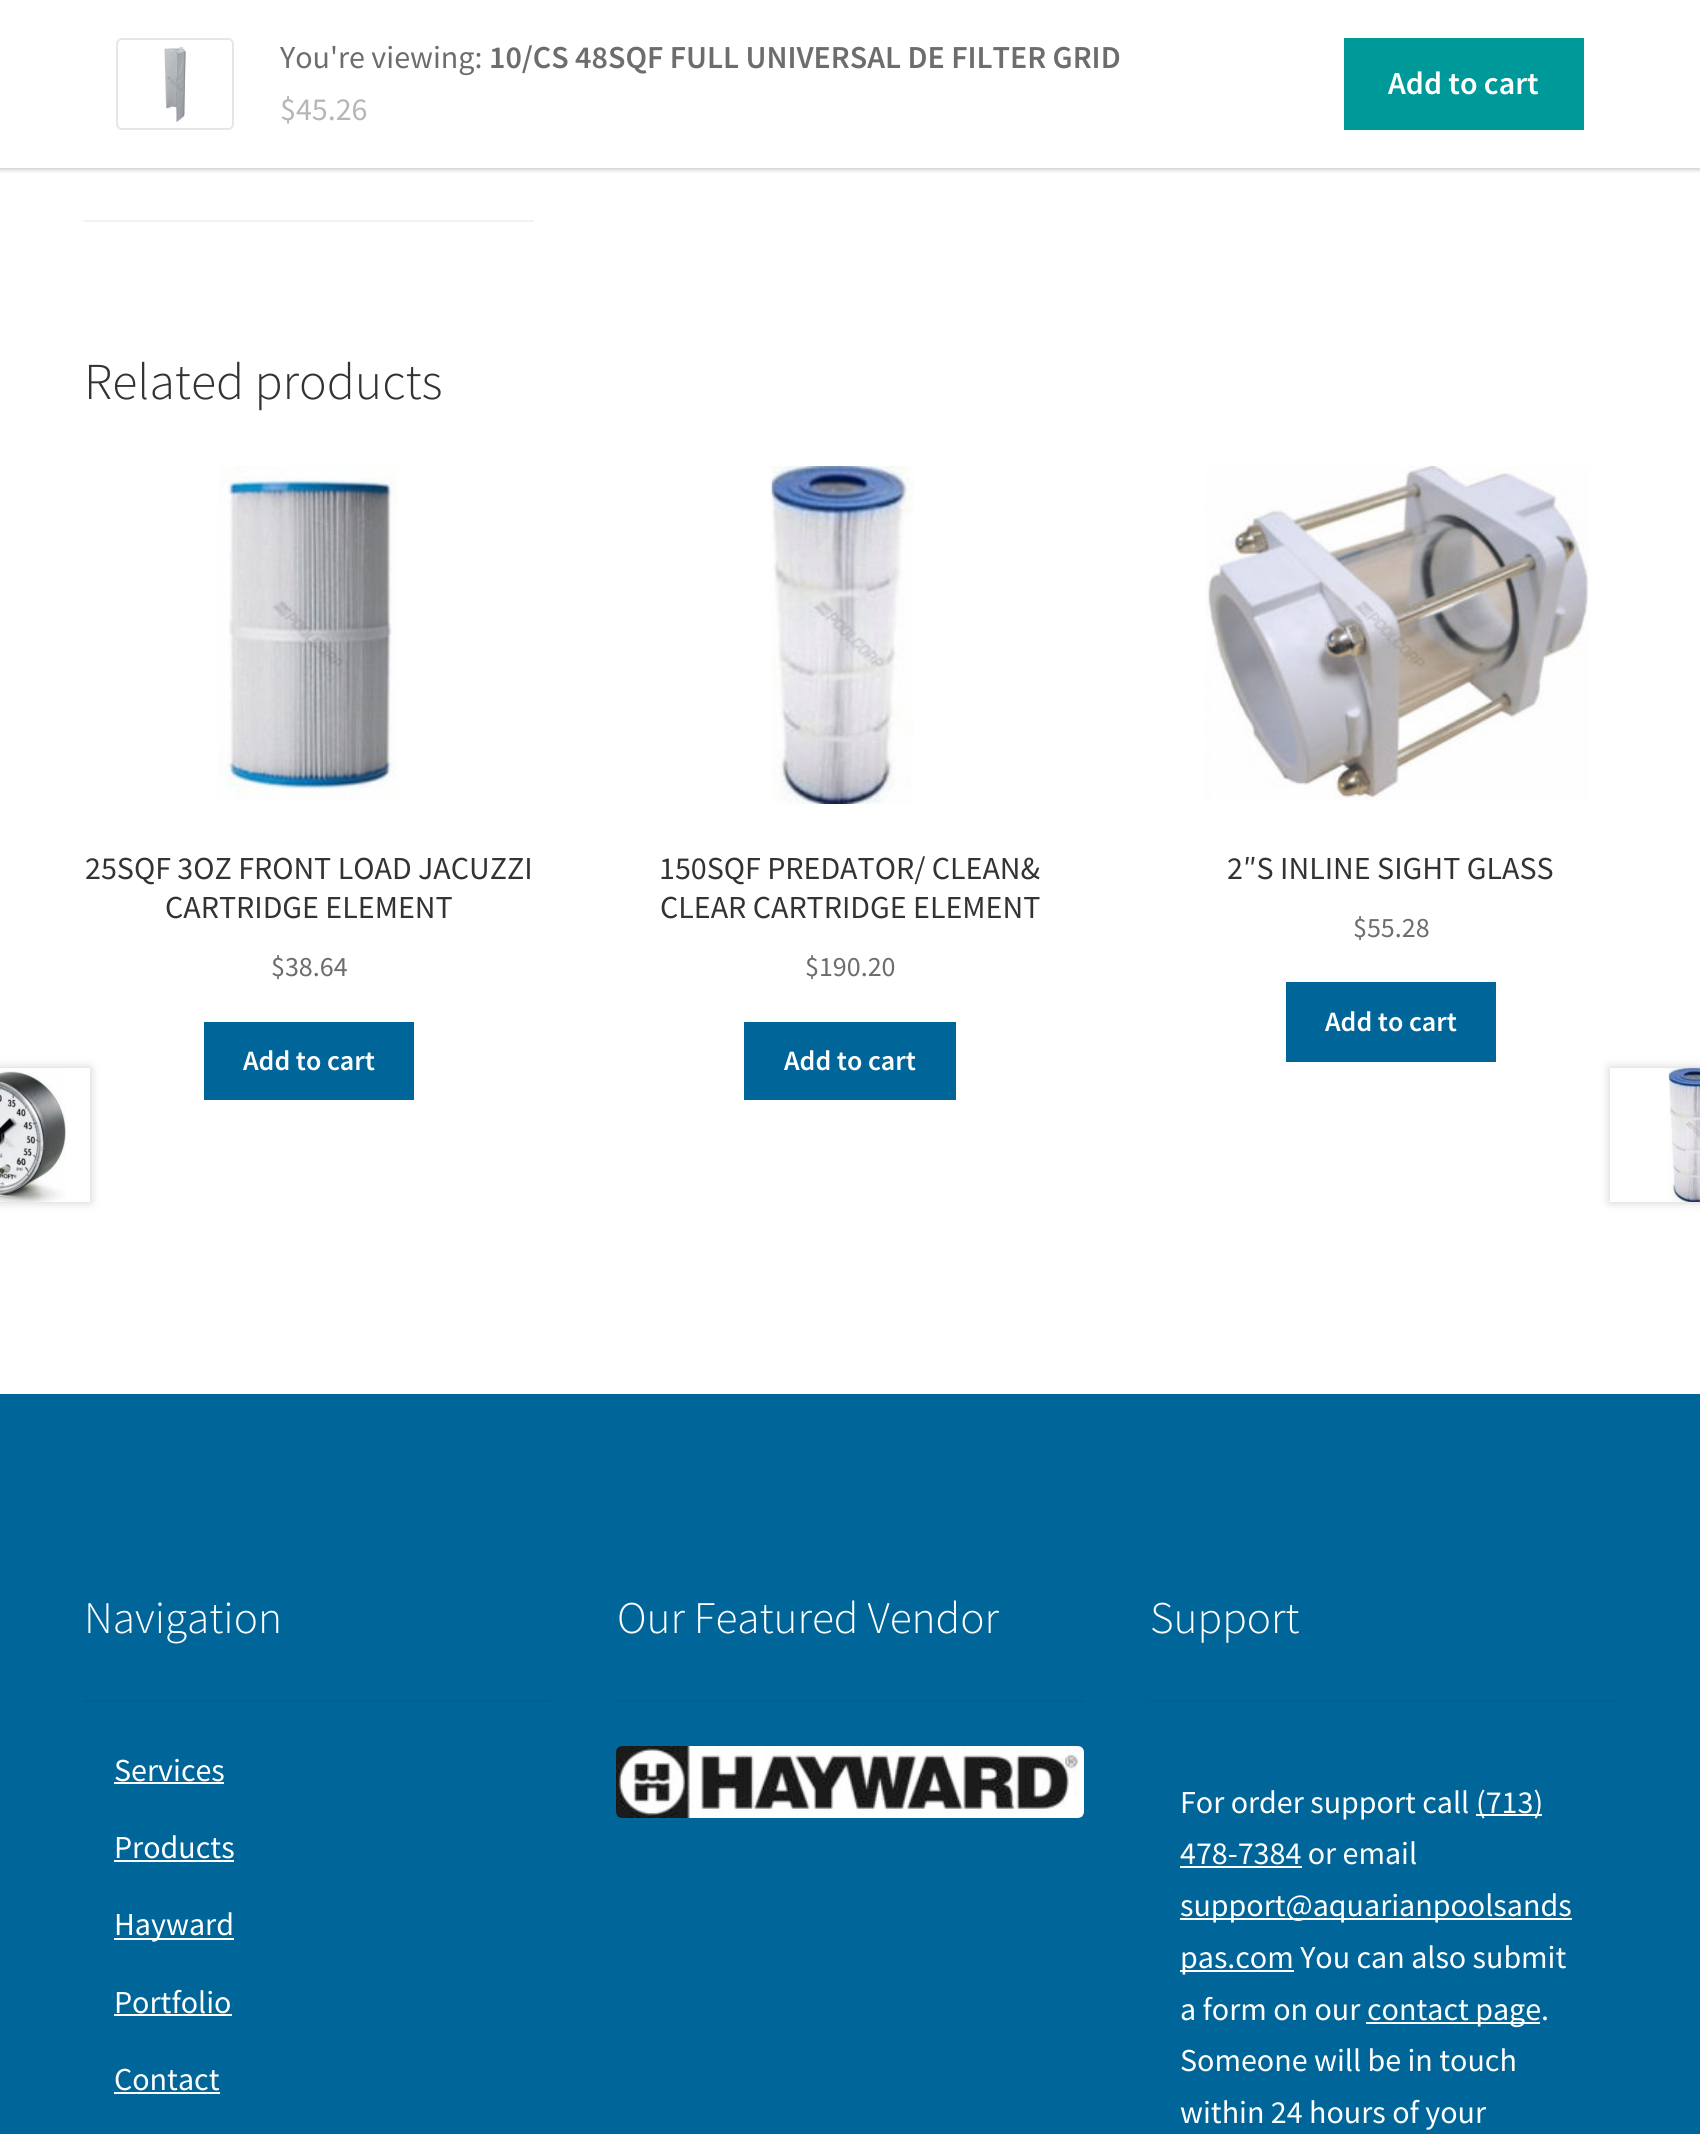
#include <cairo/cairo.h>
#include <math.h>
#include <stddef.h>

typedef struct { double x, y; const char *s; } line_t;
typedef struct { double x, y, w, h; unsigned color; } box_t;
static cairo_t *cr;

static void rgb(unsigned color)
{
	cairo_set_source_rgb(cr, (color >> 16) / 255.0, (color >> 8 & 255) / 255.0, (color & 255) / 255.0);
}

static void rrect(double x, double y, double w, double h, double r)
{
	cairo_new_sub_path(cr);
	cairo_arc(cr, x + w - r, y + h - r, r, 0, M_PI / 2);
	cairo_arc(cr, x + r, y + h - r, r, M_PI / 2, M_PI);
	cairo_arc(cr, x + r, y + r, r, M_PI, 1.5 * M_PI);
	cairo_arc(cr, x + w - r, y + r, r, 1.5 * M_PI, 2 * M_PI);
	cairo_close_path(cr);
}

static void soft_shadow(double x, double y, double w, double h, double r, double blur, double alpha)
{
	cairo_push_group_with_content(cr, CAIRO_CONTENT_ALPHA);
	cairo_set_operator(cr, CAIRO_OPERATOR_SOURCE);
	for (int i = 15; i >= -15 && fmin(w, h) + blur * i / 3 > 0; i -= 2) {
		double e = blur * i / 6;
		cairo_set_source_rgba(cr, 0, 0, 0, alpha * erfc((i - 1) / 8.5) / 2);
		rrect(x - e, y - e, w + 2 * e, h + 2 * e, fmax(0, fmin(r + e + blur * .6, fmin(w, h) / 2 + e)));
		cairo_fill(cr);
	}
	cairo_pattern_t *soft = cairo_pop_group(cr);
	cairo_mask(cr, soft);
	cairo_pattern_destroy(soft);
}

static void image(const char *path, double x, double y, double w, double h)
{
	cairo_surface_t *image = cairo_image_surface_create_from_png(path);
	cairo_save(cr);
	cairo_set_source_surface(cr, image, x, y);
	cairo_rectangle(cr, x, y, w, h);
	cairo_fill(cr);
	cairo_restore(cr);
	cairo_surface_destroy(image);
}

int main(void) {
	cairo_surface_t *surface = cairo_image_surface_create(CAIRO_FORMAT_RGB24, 1700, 2134);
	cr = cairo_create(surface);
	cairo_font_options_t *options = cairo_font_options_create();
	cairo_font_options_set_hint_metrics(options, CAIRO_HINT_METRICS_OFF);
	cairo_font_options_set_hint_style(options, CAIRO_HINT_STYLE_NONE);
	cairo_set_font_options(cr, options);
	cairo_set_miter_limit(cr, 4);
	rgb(0xffffff);
	cairo_paint(cr);
	rgb(0x000000);
	soft_shadow(0, 2, 1700, 168, 0, 2, 0.2);
	rgb(0xffffff);
	cairo_rectangle(cr, 0, 0, 1700, 168);
	cairo_fill(cr);
	rrect(117, 39, 116, 90, 5);
	rgb(0xe6e6e6);
	cairo_stroke(cr);
	image("img/1.png", 164, 46, 22, 76);
	rgb(0x009999);
	cairo_rectangle(cr, 1344, 38, 240, 92);
	cairo_fill(cr);
	rgb(0xf2f2f2);
	cairo_rectangle(cr, 84, 220, 450, 2);
	cairo_fill(cr);
	image("img/2.png", 218, 466, 180, 334);
	rgb(0x006699);
	cairo_rectangle(cr, 204, 1022, 210, 78);
	cairo_fill(cr);
	image("img/3.png", 769, 466, 145, 338);
	cairo_rectangle(cr, 744, 1022, 212, 78);
	cairo_fill(cr);
	image("img/4.png", 1205, 466, 384, 334);
	cairo_rectangle(cr, 1286, 982, 210, 80);
	cairo_fill(cr);
	cairo_save(cr);
	cairo_set_fill_rule(cr, CAIRO_FILL_RULE_EVEN_ODD);
	cairo_new_path(cr);
	cairo_move_to(cr, 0, 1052);
	cairo_line_to(cr, 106, 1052);
	cairo_line_to(cr, 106, 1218);
	cairo_line_to(cr, 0, 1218);
	cairo_close_path(cr);
	cairo_move_to(cr, -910, 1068);
	cairo_line_to(cr, 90, 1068);
	cairo_line_to(cr, 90, 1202);
	cairo_line_to(cr, -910, 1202);
	cairo_close_path(cr);
	cairo_clip(cr);
	rgb(0x000000);
	soft_shadow(-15, 1068, 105, 134, 0, 5, 0.2);
	cairo_restore(cr);
	image("img/5.png", 0, 1071, 66, 131);
	cairo_save(cr);
	cairo_set_fill_rule(cr, CAIRO_FILL_RULE_EVEN_ODD);
	cairo_new_path(cr);
	cairo_move_to(cr, 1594, 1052);
	cairo_line_to(cr, 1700, 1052);
	cairo_line_to(cr, 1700, 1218);
	cairo_line_to(cr, 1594, 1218);
	cairo_close_path(cr);
	cairo_move_to(cr, 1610, 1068);
	cairo_line_to(cr, 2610, 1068);
	cairo_line_to(cr, 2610, 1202);
	cairo_line_to(cr, 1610, 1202);
	cairo_close_path(cr);
	cairo_clip(cr);
	rgb(0x000000);
	soft_shadow(1610, 1068, 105, 134, 0, 5, 0.2);
	cairo_restore(cr);
	image("img/6.png", 1668, 1067, 32, 135);
	{
		static const box_t items[] = {
			{0, 1394, 1700, 740, 0x006699},
			{84, 1700, 466, 2, 0x006191},
			{114, 1782, 110, 2, 0xffffff},
			{114, 1860, 120, 2, 0xffffff},
			{114, 1938, 120, 2, 0xffffff},
			{114, 2014, 118, 2, 0xffffff},
			{114, 2092, 106, 2, 0xffffff},
			{616, 1700, 468, 2, 0x006191},
		};
		for (size_t i = 0; i < sizeof items / sizeof *items; i++) {
			rgb(items[i].color);
			cairo_rectangle(cr, items[i].x, items[i].y, items[i].w, items[i].h);
			cairo_fill(cr);
		}
	}
	image("img/7.png", 616, 1746, 468, 72);
	{
		static const box_t items[] = {
			{1150, 1700, 466, 2, 0x006191},
			{1476, 1814, 66, 2, 0xffffff},
			{1180, 1866, 122, 2, 0xffffff},
			{1180, 1918, 392, 2, 0xffffff},
			{1180, 1970, 114, 2, 0xffffff},
			{1366, 2022, 174, 2, 0xffffff},
		};
		for (size_t i = 0; i < sizeof items / sizeof *items; i++) {
			rgb(items[i].color);
			cairo_rectangle(cr, items[i].x, items[i].y, items[i].w, items[i].h);
			cairo_fill(cr);
		}
	}
	cairo_select_font_face(cr, "Source Sans Pro", CAIRO_FONT_SLANT_NORMAL, CAIRO_FONT_WEIGHT_NORMAL);
	cairo_set_font_size(cr, 32);
	rgb(0x6d6d6d);
	cairo_move_to(cr, 280, 68);
	cairo_show_text(cr, "You're viewing:");
	cairo_select_font_face(cr, "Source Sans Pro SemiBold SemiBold", CAIRO_FONT_SLANT_NORMAL, CAIRO_FONT_WEIGHT_NORMAL);
	cairo_move_to(cr, 489, 68);
	cairo_show_text(cr, "10/CS 48SQF FULL UNIVERSAL DE FILTER GRID");
	cairo_select_font_face(cr, "Source Sans Pro", CAIRO_FONT_SLANT_NORMAL, CAIRO_FONT_WEIGHT_NORMAL);
	rgb(0xb6b6b6);
	cairo_move_to(cr, 280, 120);
	cairo_show_text(cr, "$45.26");
	cairo_select_font_face(cr, "Source Sans Pro SemiBold SemiBold", CAIRO_FONT_SLANT_NORMAL, CAIRO_FONT_WEIGHT_NORMAL);
	rgb(0xffffff);
	cairo_move_to(cr, 1388, 94);
	cairo_show_text(cr, "Add to cart");
	cairo_select_font_face(cr, "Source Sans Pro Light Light", CAIRO_FONT_SLANT_NORMAL, CAIRO_FONT_WEIGHT_NORMAL);
	cairo_set_font_size(cr, 51.75);
	rgb(0x333333);
	cairo_move_to(cr, 84, 399);
	cairo_show_text(cr, "Related products");
	cairo_select_font_face(cr, "Source Sans Pro", CAIRO_FONT_SLANT_NORMAL, CAIRO_FONT_WEIGHT_NORMAL);
	cairo_set_font_size(cr, 32);
	cairo_move_to(cr, 85, 879);
	cairo_show_text(cr, "25SQF 3OZ FRONT LOAD JACUZZI");
	cairo_move_to(cr, 165, 918);
	cairo_show_text(cr, "CARTRIDGE ELEMENT");
	cairo_set_font_size(cr, 28);
	rgb(0x6d6d6d);
	cairo_move_to(cr, 271, 976);
	cairo_show_text(cr, "$38.64");
	cairo_select_font_face(cr, "Source Sans Pro SemiBold SemiBold", CAIRO_FONT_SLANT_NORMAL, CAIRO_FONT_WEIGHT_NORMAL);
	rgb(0xffffff);
	cairo_move_to(cr, 243, 1070);
	cairo_show_text(cr, "Add to cart");
	cairo_select_font_face(cr, "Source Sans Pro", CAIRO_FONT_SLANT_NORMAL, CAIRO_FONT_WEIGHT_NORMAL);
	cairo_set_font_size(cr, 32);
	rgb(0x333333);
	cairo_move_to(cr, 659, 879);
	cairo_show_text(cr, "150SQF PREDATOR/ CLEAN&");
	cairo_move_to(cr, 660, 918);
	cairo_show_text(cr, "CLEAR CARTRIDGE ELEMENT");
	cairo_set_font_size(cr, 28);
	rgb(0x6d6d6d);
	cairo_move_to(cr, 805, 976);
	cairo_show_text(cr, "$190.20");
	cairo_select_font_face(cr, "Source Sans Pro SemiBold SemiBold", CAIRO_FONT_SLANT_NORMAL, CAIRO_FONT_WEIGHT_NORMAL);
	rgb(0xffffff);
	cairo_move_to(cr, 784, 1070);
	cairo_show_text(cr, "Add to cart");
	cairo_select_font_face(cr, "Source Sans Pro", CAIRO_FONT_SLANT_NORMAL, CAIRO_FONT_WEIGHT_NORMAL);
	cairo_set_font_size(cr, 32);
	rgb(0x333333);
	cairo_move_to(cr, 1227, 879);
	cairo_show_text(cr, "2″S INLINE SIGHT GLASS");
	cairo_set_font_size(cr, 28);
	rgb(0x6d6d6d);
	cairo_move_to(cr, 1353, 937);
	cairo_show_text(cr, "$55.28");
	cairo_select_font_face(cr, "Source Sans Pro SemiBold SemiBold", CAIRO_FONT_SLANT_NORMAL, CAIRO_FONT_WEIGHT_NORMAL);
	rgb(0xffffff);
	cairo_move_to(cr, 1325, 1031);
	cairo_show_text(cr, "Add to cart");
	cairo_select_font_face(cr, "Source Sans Pro Light Light", CAIRO_FONT_SLANT_NORMAL, CAIRO_FONT_WEIGHT_NORMAL);
	cairo_set_font_size(cr, 45.25);
	cairo_move_to(cr, 84, 1633);
	cairo_show_text(cr, "Navigation");
	cairo_select_font_face(cr, "Source Sans Pro", CAIRO_FONT_SLANT_NORMAL, CAIRO_FONT_WEIGHT_NORMAL);
	cairo_set_font_size(cr, 32);
	{
		static const line_t items[] = {
			{114, 1781, "Services"},
			{114, 1858, "Products"},
			{114, 1935, "Hayward"},
			{114, 2013, "Portfolio"},
			{114, 2090, "Contact"},
		};
		for (size_t i = 0; i < sizeof items / sizeof *items; i++) {
			cairo_move_to(cr, items[i].x, items[i].y);
			cairo_show_text(cr, items[i].s);
		}
	}
	cairo_select_font_face(cr, "Source Sans Pro Light Light", CAIRO_FONT_SLANT_NORMAL, CAIRO_FONT_WEIGHT_NORMAL);
	cairo_set_font_size(cr, 45.25);
	cairo_move_to(cr, 617, 1633);
	cairo_show_text(cr, "Our Featured Vendor");
	cairo_move_to(cr, 1150, 1633);
	cairo_show_text(cr, "Support");
	cairo_select_font_face(cr, "Source Sans Pro", CAIRO_FONT_SLANT_NORMAL, CAIRO_FONT_WEIGHT_NORMAL);
	cairo_set_font_size(cr, 32);
	{
		static const line_t items[] = {
			{1180, 1813, "For order support call"},
			{1476, 1813, "(713)"},
			{1180, 1864, "478-7384 or email"},
			{1180, 1916, "support@aquarianpoolsands"},
			{1180, 1968, "pas.com You can also submit"},
			{1180, 2020, "a form on our"},
			{1367, 2020, "contact page."},
			{1180, 2071, "Someone will be in touch"},
			{1180, 2123, "within 24 hours of your"},
		};
		for (size_t i = 0; i < sizeof items / sizeof *items; i++) {
			cairo_move_to(cr, items[i].x, items[i].y);
			cairo_show_text(cr, items[i].s);
		}
	}
	cairo_surface_write_to_png(surface, "page.png");
	cairo_font_options_destroy(options);
	cairo_destroy(cr);
	cairo_surface_destroy(surface);
	return 0;
}
